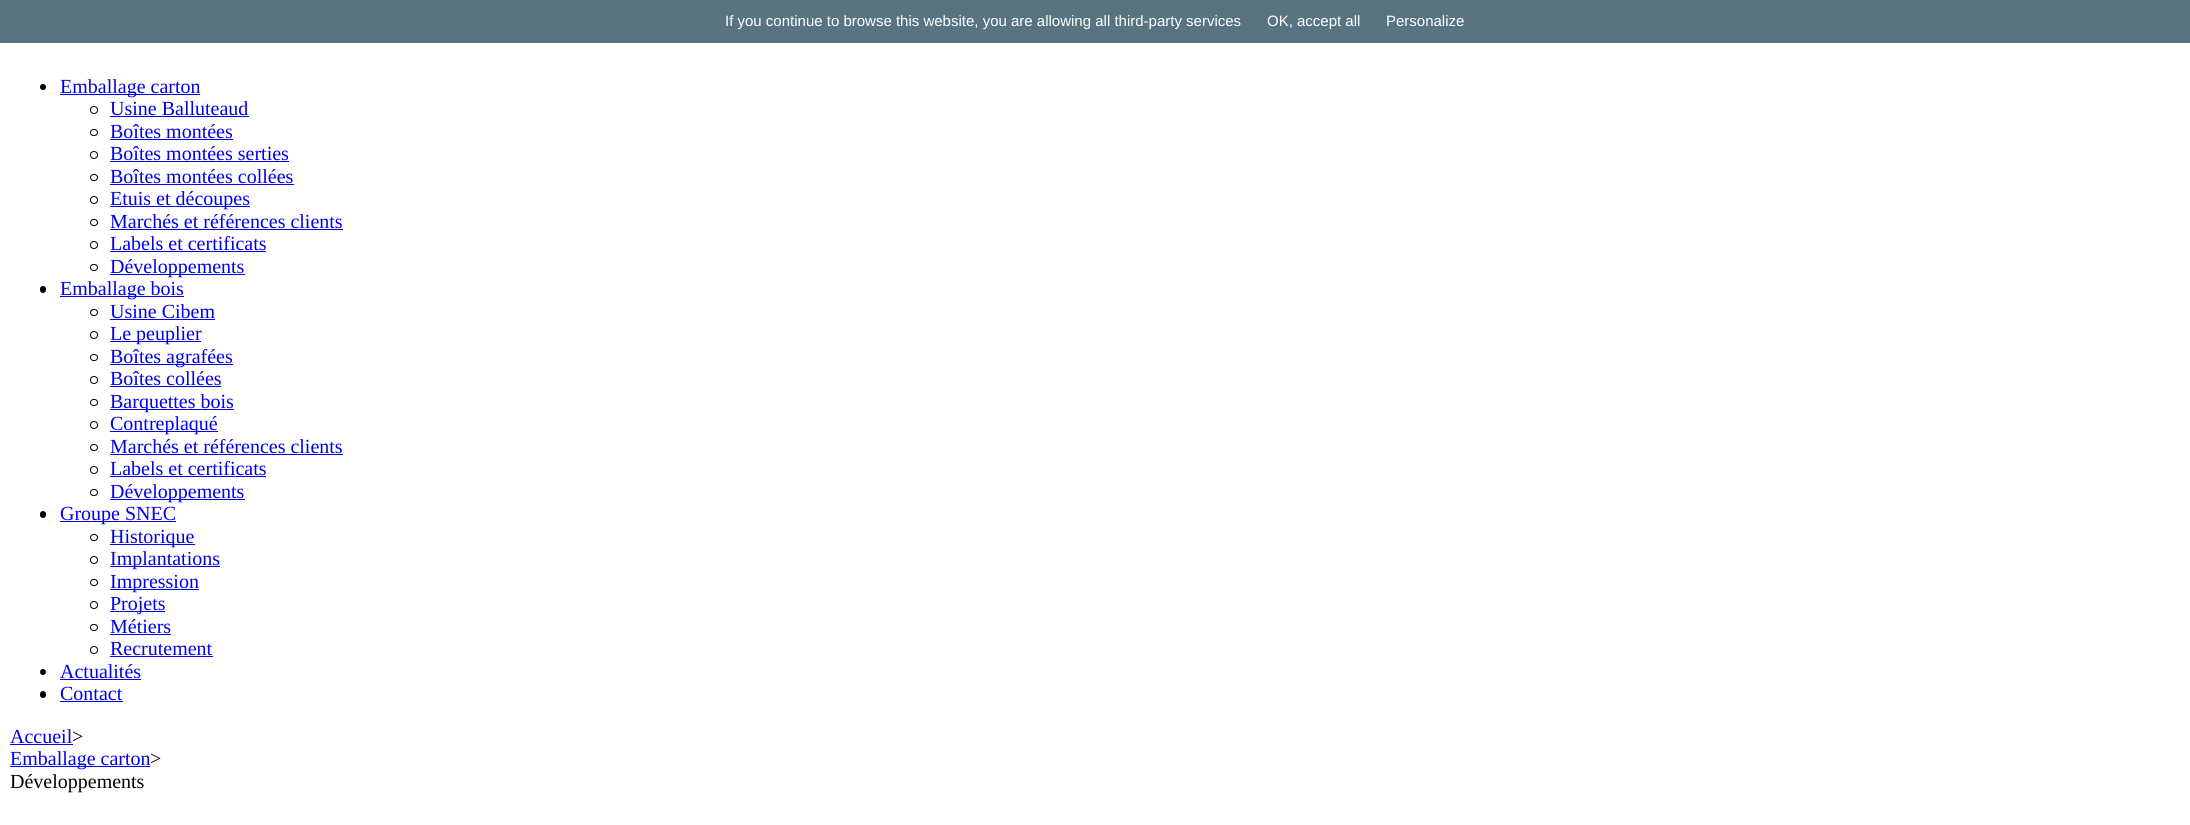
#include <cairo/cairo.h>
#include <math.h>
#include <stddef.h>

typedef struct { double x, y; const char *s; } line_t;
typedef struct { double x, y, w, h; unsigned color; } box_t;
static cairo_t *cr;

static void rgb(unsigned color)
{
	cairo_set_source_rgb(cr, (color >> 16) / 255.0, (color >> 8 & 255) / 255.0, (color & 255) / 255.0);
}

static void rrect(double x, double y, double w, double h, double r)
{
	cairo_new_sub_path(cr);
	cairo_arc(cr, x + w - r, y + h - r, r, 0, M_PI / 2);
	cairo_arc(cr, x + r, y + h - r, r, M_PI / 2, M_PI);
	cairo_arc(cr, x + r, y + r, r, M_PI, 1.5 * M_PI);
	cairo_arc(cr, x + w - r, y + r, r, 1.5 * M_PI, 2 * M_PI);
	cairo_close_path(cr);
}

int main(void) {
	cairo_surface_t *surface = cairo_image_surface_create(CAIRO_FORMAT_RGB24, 2190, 825);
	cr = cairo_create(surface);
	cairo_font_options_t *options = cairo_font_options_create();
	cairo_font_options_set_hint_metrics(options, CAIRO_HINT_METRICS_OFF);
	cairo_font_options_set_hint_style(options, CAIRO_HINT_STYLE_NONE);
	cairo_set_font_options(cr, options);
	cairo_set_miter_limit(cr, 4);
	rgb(0xffffff);
	cairo_paint(cr);
	rgb(0x587481);
	cairo_rectangle(cr, 0, 0, 2190, 43);
	cairo_fill(cr);
	rgb(0x000000);
	cairo_arc(cr, 43, 87, 3, 0, 2 * M_PI);
	cairo_fill(cr);
	rgb(0x0000ee);
	cairo_rectangle(cr, 60, 94, 140, 1);
	cairo_fill(cr);
	cairo_arc(cr, 94, 110, 3.5, 0, 2 * M_PI);
	rgb(0x000000);
	cairo_set_line_width(cr, 1);
	cairo_stroke(cr);
	rgb(0x0000ee);
	cairo_rectangle(cr, 110, 116, 139, 1);
	cairo_fill(cr);
	rrect(90.5, 129.5, 7, 6, 3);
	rgb(0x000000);
	cairo_stroke(cr);
	rgb(0x0000ee);
	cairo_rectangle(cr, 110, 139, 123, 1);
	cairo_fill(cr);
	cairo_arc(cr, 94, 155, 3.5, 0, 2 * M_PI);
	rgb(0x000000);
	cairo_stroke(cr);
	rgb(0x0000ee);
	cairo_rectangle(cr, 110, 161, 179, 1);
	cairo_fill(cr);
	rrect(90.5, 174.5, 7, 6, 3);
	rgb(0x000000);
	cairo_stroke(cr);
	rgb(0x0000ee);
	cairo_rectangle(cr, 110, 184, 184, 1);
	cairo_fill(cr);
	cairo_arc(cr, 94, 200, 3.5, 0, 2 * M_PI);
	rgb(0x000000);
	cairo_stroke(cr);
	rgb(0x0000ee);
	cairo_rectangle(cr, 110, 206, 140, 1);
	cairo_fill(cr);
	rrect(90.5, 219.5, 7, 6, 3);
	rgb(0x000000);
	cairo_stroke(cr);
	rgb(0x0000ee);
	cairo_rectangle(cr, 110, 229, 233, 1);
	cairo_fill(cr);
	cairo_arc(cr, 94, 245, 3.5, 0, 2 * M_PI);
	rgb(0x000000);
	cairo_stroke(cr);
	rgb(0x0000ee);
	cairo_rectangle(cr, 110, 251, 156, 1);
	cairo_fill(cr);
	rrect(90.5, 264.5, 7, 6, 3);
	rgb(0x000000);
	cairo_stroke(cr);
	rgb(0x0000ee);
	cairo_rectangle(cr, 110, 274, 135, 1);
	cairo_fill(cr);
	rgb(0x000000);
	rrect(40, 286, 6, 7, 3);
	cairo_fill(cr);
	rgb(0x0000ee);
	cairo_rectangle(cr, 60, 296, 124, 1);
	cairo_fill(cr);
	rrect(90.5, 309.5, 7, 6, 3);
	rgb(0x000000);
	cairo_stroke(cr);
	rgb(0x0000ee);
	cairo_rectangle(cr, 110, 319, 105, 1);
	cairo_fill(cr);
	cairo_arc(cr, 94, 335, 3.5, 0, 2 * M_PI);
	rgb(0x000000);
	cairo_stroke(cr);
	rgb(0x0000ee);
	cairo_rectangle(cr, 110, 341, 91, 1);
	cairo_fill(cr);
	rrect(90.5, 354.5, 7, 6, 3);
	rgb(0x000000);
	cairo_stroke(cr);
	rgb(0x0000ee);
	cairo_rectangle(cr, 110, 364, 123, 1);
	cairo_fill(cr);
	cairo_arc(cr, 94, 380, 3.5, 0, 2 * M_PI);
	rgb(0x000000);
	cairo_stroke(cr);
	rgb(0x0000ee);
	cairo_rectangle(cr, 110, 386, 111, 1);
	cairo_fill(cr);
	rrect(90.5, 399.5, 7, 6, 3);
	rgb(0x000000);
	cairo_stroke(cr);
	rgb(0x0000ee);
	cairo_rectangle(cr, 110, 409, 124, 1);
	cairo_fill(cr);
	cairo_arc(cr, 94, 425, 3.5, 0, 2 * M_PI);
	rgb(0x000000);
	cairo_stroke(cr);
	rgb(0x0000ee);
	cairo_rectangle(cr, 110, 431, 108, 1);
	cairo_fill(cr);
	rrect(90.5, 444.5, 7, 6, 3);
	rgb(0x000000);
	cairo_stroke(cr);
	rgb(0x0000ee);
	cairo_rectangle(cr, 110, 454, 233, 1);
	cairo_fill(cr);
	cairo_arc(cr, 94, 470, 3.5, 0, 2 * M_PI);
	rgb(0x000000);
	cairo_stroke(cr);
	rgb(0x0000ee);
	cairo_rectangle(cr, 110, 476, 156, 1);
	cairo_fill(cr);
	rrect(90.5, 489.5, 7, 6, 3);
	rgb(0x000000);
	cairo_stroke(cr);
	rgb(0x0000ee);
	cairo_rectangle(cr, 110, 499, 135, 1);
	cairo_fill(cr);
	rgb(0x000000);
	rrect(40, 511, 6, 7, 3);
	cairo_fill(cr);
	rgb(0x0000ee);
	cairo_rectangle(cr, 60, 521, 116, 1);
	cairo_fill(cr);
	rrect(90.5, 534.5, 7, 6, 3);
	rgb(0x000000);
	cairo_stroke(cr);
	rgb(0x0000ee);
	cairo_rectangle(cr, 110, 544, 85, 1);
	cairo_fill(cr);
	cairo_arc(cr, 94, 560, 3.5, 0, 2 * M_PI);
	rgb(0x000000);
	cairo_stroke(cr);
	rgb(0x0000ee);
	cairo_rectangle(cr, 110, 566, 110, 1);
	cairo_fill(cr);
	rrect(90.5, 579.5, 7, 6, 3);
	rgb(0x000000);
	cairo_stroke(cr);
	rgb(0x0000ee);
	cairo_rectangle(cr, 110, 589, 89, 1);
	cairo_fill(cr);
	cairo_arc(cr, 94, 605, 3.5, 0, 2 * M_PI);
	rgb(0x000000);
	cairo_stroke(cr);
	rgb(0x0000ee);
	cairo_rectangle(cr, 110, 611, 55, 1);
	cairo_fill(cr);
	rrect(90.5, 624.5, 7, 6, 3);
	rgb(0x000000);
	cairo_stroke(cr);
	rgb(0x0000ee);
	cairo_rectangle(cr, 110, 634, 61, 1);
	cairo_fill(cr);
	cairo_arc(cr, 94, 650, 3.5, 0, 2 * M_PI);
	rgb(0x000000);
	cairo_stroke(cr);
	rgb(0x0000ee);
	cairo_rectangle(cr, 110, 656, 103, 1);
	cairo_fill(cr);
	rgb(0x000000);
	cairo_arc(cr, 43, 672, 3, 0, 2 * M_PI);
	cairo_fill(cr);
	rgb(0x0000ee);
	cairo_rectangle(cr, 60, 679, 81, 1);
	cairo_fill(cr);
	rgb(0x000000);
	rrect(40, 691, 6, 7, 3);
	cairo_fill(cr);
	{
		static const box_t items[] = {
			{60, 701, 63, 1, 0x0000ee},
			{10, 744, 63, 1, 0x0000ee},
			{10, 766, 140, 1, 0x0000ee},
		};
		for (size_t i = 0; i < sizeof items / sizeof *items; i++) {
			rgb(items[i].color);
			cairo_rectangle(cr, items[i].x, items[i].y, items[i].w, items[i].h);
			cairo_fill(cr);
		}
	}
	cairo_select_font_face(cr, "Liberation Sans", CAIRO_FONT_SLANT_NORMAL, CAIRO_FONT_WEIGHT_NORMAL);
	cairo_set_font_size(cr, 15);
	rgb(0xffffff);
	{
		static const line_t items[] = {
			{725, 26, "If you continue to browse this website, you are allowing all third-party services"},
			{1267, 26, "OK, accept all"},
			{1386, 26, "Personalize"},
		};
		for (size_t i = 0; i < sizeof items / sizeof *items; i++) {
			cairo_move_to(cr, items[i].x, items[i].y);
			cairo_show_text(cr, items[i].s);
		}
	}
	cairo_select_font_face(cr, "Liberation Serif", CAIRO_FONT_SLANT_NORMAL, CAIRO_FONT_WEIGHT_NORMAL);
	cairo_set_font_size(cr, 20);
	rgb(0x0000ee);
	{
		static const line_t items[] = {
			{60, 93, "Emballage carton"},
			{110, 115, "Usine Balluteaud"},
			{110, 138, "Boîtes montées"},
			{110, 160, "Boîtes montées serties"},
			{110, 183, "Boîtes montées collées"},
			{110, 205, "Etuis et découpes"},
			{110, 228, "Marchés et références clients"},
			{110, 250, "Labels et certificats"},
			{110, 273, "Développements"},
			{60, 295, "Emballage bois"},
			{110, 318, "Usine Cibem"},
			{110, 340, "Le peuplier"},
			{110, 363, "Boîtes agrafées"},
			{110, 385, "Boîtes collées"},
			{110, 408, "Barquettes bois"},
			{110, 430, "Contreplaqué"},
			{110, 453, "Marchés et références clients"},
			{110, 475, "Labels et certificats"},
			{110, 498, "Développements"},
			{60, 520, "Groupe SNEC"},
			{110, 543, "Historique"},
			{110, 565, "Implantations"},
			{110, 588, "Impression"},
			{110, 610, "Projets"},
			{110, 633, "Métiers"},
			{110, 655, "Recrutement"},
			{60, 678, "Actualités"},
			{60, 700, "Contact"},
			{10, 743, "Accueil"},
		};
		for (size_t i = 0; i < sizeof items / sizeof *items; i++) {
			cairo_move_to(cr, items[i].x, items[i].y);
			cairo_show_text(cr, items[i].s);
		}
	}
	rgb(0x000000);
	cairo_move_to(cr, 72, 743);
	cairo_show_text(cr, ">");
	rgb(0x0000ee);
	cairo_move_to(cr, 10, 765);
	cairo_show_text(cr, "Emballage carton");
	rgb(0x000000);
	cairo_move_to(cr, 150, 765);
	cairo_show_text(cr, ">");
	cairo_move_to(cr, 10, 788);
	cairo_show_text(cr, "Développements");
	cairo_surface_write_to_png(surface, "page.png");
	cairo_font_options_destroy(options);
	cairo_destroy(cr);
	cairo_surface_destroy(surface);
	return 0;
}
